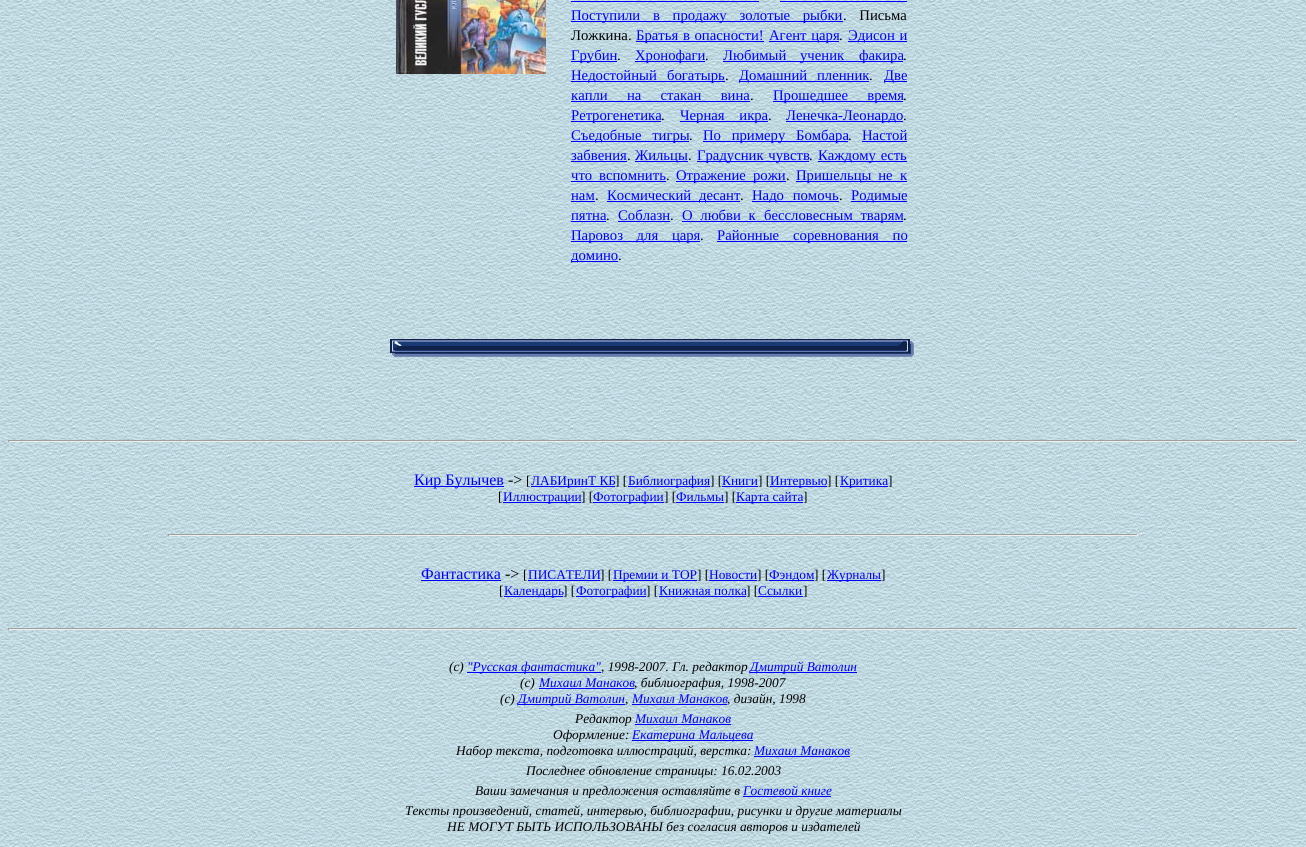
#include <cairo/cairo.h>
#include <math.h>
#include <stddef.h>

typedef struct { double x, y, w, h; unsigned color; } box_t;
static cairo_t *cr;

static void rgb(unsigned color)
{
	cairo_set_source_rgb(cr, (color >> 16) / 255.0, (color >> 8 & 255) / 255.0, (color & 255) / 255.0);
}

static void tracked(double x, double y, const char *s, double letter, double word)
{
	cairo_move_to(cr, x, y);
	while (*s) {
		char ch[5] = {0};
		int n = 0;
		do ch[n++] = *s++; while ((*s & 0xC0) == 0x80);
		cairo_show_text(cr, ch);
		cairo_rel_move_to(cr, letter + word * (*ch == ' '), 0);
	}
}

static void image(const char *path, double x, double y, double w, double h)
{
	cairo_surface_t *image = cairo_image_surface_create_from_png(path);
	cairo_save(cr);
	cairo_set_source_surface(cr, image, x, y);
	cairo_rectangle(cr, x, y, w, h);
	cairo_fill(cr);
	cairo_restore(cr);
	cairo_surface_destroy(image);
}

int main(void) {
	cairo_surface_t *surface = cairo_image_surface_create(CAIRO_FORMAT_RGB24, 1306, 847);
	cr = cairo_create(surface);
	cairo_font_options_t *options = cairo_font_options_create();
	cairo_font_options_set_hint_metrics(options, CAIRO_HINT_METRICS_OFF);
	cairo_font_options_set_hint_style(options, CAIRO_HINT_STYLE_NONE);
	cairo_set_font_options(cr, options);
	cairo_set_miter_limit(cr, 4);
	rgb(0xffffff);
	cairo_paint(cr);
	image("img/1.png", 0, 0, 1306, 847);
	image("img/2.png", 396, 0, 150, 74);
	{
		static const box_t items[] = {
			{571, 1, 188, 1, 0x0000ff},
			{780, 1, 127, 1, 0x0000ff},
			{571, 21, 272, 1, 0x0000ff},
			{636, 41, 128, 1, 0x0000ff},
			{769, 41, 70, 1, 0x0000ff},
			{848, 41, 59, 1, 0x0000ff},
			{571, 61, 46, 1, 0x0000ff},
			{635, 61, 70, 1, 0x0000ff},
			{723, 61, 180, 1, 0x0000ff},
			{571, 81, 154, 1, 0x0000ff},
			{739, 81, 130, 1, 0x0000ff},
			{884, 81, 23, 1, 0x0000ff},
			{571, 101, 179, 1, 0x0000ff},
			{773, 101, 130, 1, 0x0000ff},
			{571, 121, 90, 1, 0x0000ff},
			{680, 121, 88, 1, 0x0000ff},
			{786, 121, 117, 1, 0x0000ff},
			{571, 141, 118, 1, 0x0000ff},
			{703, 141, 145, 1, 0x0000ff},
			{862, 141, 45, 1, 0x0000ff},
			{571, 161, 56, 1, 0x0000ff},
			{635, 161, 53, 1, 0x0000ff},
			{697, 161, 112, 1, 0x0000ff},
			{818, 161, 89, 1, 0x0000ff},
			{571, 181, 95, 1, 0x0000ff},
			{676, 181, 110, 1, 0x0000ff},
			{796, 181, 111, 1, 0x0000ff},
			{571, 201, 24, 1, 0x0000ff},
			{607, 201, 133, 1, 0x0000ff},
			{752, 201, 87, 1, 0x0000ff},
			{851, 201, 56, 1, 0x0000ff},
			{571, 221, 35, 1, 0x0000ff},
			{618, 221, 52, 1, 0x0000ff},
			{682, 221, 221, 1, 0x0000ff},
			{571, 241, 129, 1, 0x0000ff},
			{717, 241, 190, 1, 0x0000ff},
			{571, 261, 47, 1, 0x0000ff},
		};
		for (size_t i = 0; i < sizeof items / sizeof *items; i++) {
			rgb(items[i].color);
			cairo_rectangle(cr, items[i].x, items[i].y, items[i].w, items[i].h);
			cairo_fill(cr);
		}
	}
	image("img/3.png", 390, 339, 524, 18);
	{
		static const box_t items[] = {
			{8, 440, 1290, 1, 0x9f9f9f},
			{1297, 440, 1, 2, 0xeeeeee},
			{8, 441, 1290, 1, 0xeeeeee},
			{8, 440, 1, 2, 0x9f9f9f},
			{414, 486, 90, 1, 0x0000ff},
			{531, 486, 84, 1, 0x0000ff},
			{628, 486, 82, 1, 0x0000ff},
			{722, 486, 36, 1, 0x0000ff},
			{770, 486, 57, 1, 0x0000ff},
			{840, 486, 48, 1, 0x0000ff},
			{503, 502, 78, 1, 0x0000ff},
			{593, 502, 71, 1, 0x0000ff},
			{676, 502, 48, 1, 0x0000ff},
			{736, 502, 67, 1, 0x0000ff},
			{168, 534, 970, 1, 0x9f9f9f},
			{1137, 534, 1, 2, 0xeeeeee},
			{168, 535, 970, 1, 0xeeeeee},
			{168, 534, 1, 2, 0x9f9f9f},
			{421, 580, 80, 1, 0x0000ff},
			{528, 580, 72, 1, 0x0000ff},
			{613, 580, 84, 1, 0x0000ff},
			{709, 580, 48, 1, 0x0000ff},
			{769, 580, 45, 1, 0x0000ff},
			{827, 580, 54, 1, 0x0000ff},
			{504, 596, 59, 1, 0x0000ff},
			{576, 596, 70, 1, 0x0000ff},
			{659, 596, 87, 1, 0x0000ff},
			{758, 596, 45, 1, 0x0000ff},
			{8, 628, 1290, 1, 0x9f9f9f},
			{1297, 628, 1, 2, 0xeeeeee},
			{8, 629, 1290, 1, 0xeeeeee},
			{8, 628, 1, 2, 0x9f9f9f},
			{467, 672, 134, 1, 0x0000ff},
			{750, 672, 107, 1, 0x0000ff},
			{539, 688, 95, 1, 0x0000ff},
			{518, 704, 107, 1, 0x0000ff},
			{632, 704, 95, 1, 0x0000ff},
			{635, 724, 96, 1, 0x0000ff},
			{632, 740, 121, 1, 0x0000ff},
			{754, 756, 96, 1, 0x0000ff},
			{743, 796, 88, 1, 0x0000ff},
		};
		for (size_t i = 0; i < sizeof items / sizeof *items; i++) {
			rgb(items[i].color);
			cairo_rectangle(cr, items[i].x, items[i].y, items[i].w, items[i].h);
			cairo_fill(cr);
		}
	}
	cairo_select_font_face(cr, "Liberation Serif", CAIRO_FONT_SLANT_NORMAL, CAIRO_FONT_WEIGHT_NORMAL);
	cairo_set_font_size(cr, 14.7);
	cairo_move_to(cr, 571, 20);
	cairo_show_text(cr, "Поступили");
	tracked(653, 20, "в продажу золотые рыбки", 0, 9);
	rgb(0x000000);
	tracked(843, 20, ". Письма", 0, 9);
	cairo_move_to(cr, 571, 40);
	cairo_show_text(cr, "Ложкина.");
	rgb(0x0000ff);
	tracked(636, 40, "Братья в опасности!", 0, 1);
	tracked(769, 40, "Агент царя", 0, 1);
	rgb(0x000000);
	cairo_move_to(cr, 839, 40);
	cairo_show_text(cr, ".");
	rgb(0x0000ff);
	tracked(848, 40, "Эдисон и", 0, 1);
	cairo_move_to(cr, 571, 60);
	cairo_show_text(cr, "Грубин");
	rgb(0x000000);
	cairo_move_to(cr, 617, 60);
	cairo_show_text(cr, ".");
	rgb(0x0000ff);
	cairo_move_to(cr, 635, 60);
	cairo_show_text(cr, "Хронофаги");
	rgb(0x000000);
	cairo_move_to(cr, 705, 60);
	cairo_show_text(cr, ".");
	rgb(0x0000ff);
	tracked(723, 60, "Любимый ученик", 0, 10);
	cairo_move_to(cr, 859, 60);
	cairo_show_text(cr, "факира");
	rgb(0x000000);
	cairo_move_to(cr, 903, 60);
	cairo_show_text(cr, ".");
	rgb(0x0000ff);
	cairo_move_to(cr, 571, 80);
	cairo_show_text(cr, "Недостойный");
	cairo_move_to(cr, 667, 80);
	cairo_show_text(cr, "богатырь");
	rgb(0x000000);
	cairo_move_to(cr, 725, 80);
	cairo_show_text(cr, ".");
	rgb(0x0000ff);
	cairo_move_to(cr, 739, 80);
	cairo_show_text(cr, "Домашний");
	cairo_move_to(cr, 817, 80);
	cairo_show_text(cr, "пленник");
	rgb(0x000000);
	cairo_move_to(cr, 869, 80);
	cairo_show_text(cr, ".");
	rgb(0x0000ff);
	cairo_move_to(cr, 884, 80);
	cairo_show_text(cr, "Две");
	tracked(571, 100, "капли на стакан вина", 0, 15.5);
	rgb(0x000000);
	cairo_move_to(cr, 750, 100);
	cairo_show_text(cr, ".");
	rgb(0x0000ff);
	tracked(773, 100, "Прошедшее время", 0, 15.5);
	rgb(0x000000);
	cairo_move_to(cr, 903, 100);
	cairo_show_text(cr, ".");
	rgb(0x0000ff);
	cairo_move_to(cr, 571, 120);
	cairo_show_text(cr, "Ретрогенетика");
	rgb(0x000000);
	cairo_move_to(cr, 661, 120);
	cairo_show_text(cr, ".");
	rgb(0x0000ff);
	tracked(680, 120, "Черная икра", 0, 11);
	rgb(0x000000);
	cairo_move_to(cr, 768, 120);
	cairo_show_text(cr, ".");
	rgb(0x0000ff);
	cairo_move_to(cr, 786, 120);
	cairo_show_text(cr, "Ленечка-Леонардо");
	rgb(0x000000);
	cairo_move_to(cr, 903, 120);
	cairo_show_text(cr, ".");
	rgb(0x0000ff);
	tracked(571, 140, "Съедобные тигры", 0, 7);
	rgb(0x000000);
	cairo_move_to(cr, 689, 140);
	cairo_show_text(cr, ".");
	rgb(0x0000ff);
	tracked(703, 140, "По примеру Бомбара", 0, 7);
	rgb(0x000000);
	cairo_move_to(cr, 848, 140);
	cairo_show_text(cr, ".");
	rgb(0x0000ff);
	cairo_move_to(cr, 862, 140);
	cairo_show_text(cr, "Настой");
	cairo_move_to(cr, 571, 160);
	cairo_show_text(cr, "забвения");
	rgb(0x000000);
	cairo_move_to(cr, 627, 160);
	cairo_show_text(cr, ".");
	rgb(0x0000ff);
	cairo_move_to(cr, 635, 160);
	cairo_show_text(cr, "Жильцы");
	rgb(0x000000);
	cairo_move_to(cr, 688, 160);
	cairo_show_text(cr, ".");
	rgb(0x0000ff);
	tracked(697, 160, "Градусник чувств", 0, 1);
	rgb(0x000000);
	cairo_move_to(cr, 809, 160);
	cairo_show_text(cr, ".");
	rgb(0x0000ff);
	tracked(818, 160, "Каждому есть", 0, 1);
	cairo_move_to(cr, 571, 180);
	cairo_show_text(cr, "что");
	cairo_move_to(cr, 599, 180);
	cairo_show_text(cr, "вспомнить");
	rgb(0x000000);
	cairo_move_to(cr, 666, 180);
	cairo_show_text(cr, ".");
	rgb(0x0000ff);
	cairo_move_to(cr, 676, 180);
	cairo_show_text(cr, "Отражение");
	cairo_move_to(cr, 753, 180);
	cairo_show_text(cr, "рожи");
	rgb(0x000000);
	cairo_move_to(cr, 786, 180);
	cairo_show_text(cr, ".");
	rgb(0x0000ff);
	tracked(796, 180, "Пришельцы не", 0, 3);
	cairo_move_to(cr, 900, 180);
	cairo_show_text(cr, "к");
	cairo_move_to(cr, 571, 200);
	cairo_show_text(cr, "нам");
	rgb(0x000000);
	cairo_move_to(cr, 595, 200);
	cairo_show_text(cr, ".");
	rgb(0x0000ff);
	cairo_move_to(cr, 607, 200);
	cairo_show_text(cr, "Космический");
	cairo_move_to(cr, 699, 200);
	cairo_show_text(cr, "десант");
	rgb(0x000000);
	cairo_move_to(cr, 740, 200);
	cairo_show_text(cr, ".");
	rgb(0x0000ff);
	tracked(752, 200, "Надо помочь", 0, 5);
	rgb(0x000000);
	cairo_move_to(cr, 839, 200);
	cairo_show_text(cr, ".");
	rgb(0x0000ff);
	cairo_move_to(cr, 851, 200);
	cairo_show_text(cr, "Родимые");
	cairo_move_to(cr, 571, 220);
	cairo_show_text(cr, "пятна");
	rgb(0x000000);
	cairo_move_to(cr, 606, 220);
	cairo_show_text(cr, ".");
	rgb(0x0000ff);
	cairo_move_to(cr, 618, 220);
	cairo_show_text(cr, "Соблазн");
	rgb(0x000000);
	cairo_move_to(cr, 670, 220);
	cairo_show_text(cr, ".");
	rgb(0x0000ff);
	tracked(682, 220, "О любви к", 0, 4);
	tracked(764, 220, "бессловесным тварям", 0, 4);
	rgb(0x000000);
	cairo_move_to(cr, 903, 220);
	cairo_show_text(cr, ".");
	rgb(0x0000ff);
	tracked(571, 240, "Паровоз для царя", 0, 10);
	rgb(0x000000);
	cairo_move_to(cr, 700, 240);
	cairo_show_text(cr, ".");
	rgb(0x0000ff);
	cairo_move_to(cr, 717, 240);
	cairo_show_text(cr, "Районные");
	tracked(793, 240, "соревнования по", 0, 10);
	cairo_move_to(cr, 571, 260);
	cairo_show_text(cr, "домино");
	rgb(0x000000);
	cairo_move_to(cr, 618, 260);
	cairo_show_text(cr, ".");
	cairo_set_font_size(cr, 16);
	rgb(0x0000ff);
	cairo_move_to(cr, 414, 485);
	cairo_show_text(cr, "Кир Булычев");
	rgb(0x000000);
	cairo_move_to(cr, 508, 485);
	cairo_show_text(cr, "->");
	cairo_set_font_size(cr, 13.35);
	cairo_move_to(cr, 526, 485);
	cairo_show_text(cr, "[");
	rgb(0x0000ff);
	cairo_move_to(cr, 531, 485);
	cairo_show_text(cr, "ЛАБИринТ КБ");
	rgb(0x000000);
	cairo_move_to(cr, 615, 485);
	cairo_show_text(cr, "] [");
	rgb(0x0000ff);
	cairo_move_to(cr, 628, 485);
	cairo_show_text(cr, "Библиография");
	rgb(0x000000);
	cairo_move_to(cr, 710, 485);
	cairo_show_text(cr, "] [");
	rgb(0x0000ff);
	cairo_move_to(cr, 722, 485);
	cairo_show_text(cr, "Книги");
	rgb(0x000000);
	cairo_move_to(cr, 758, 485);
	cairo_show_text(cr, "] [");
	rgb(0x0000ff);
	cairo_move_to(cr, 770, 485);
	cairo_show_text(cr, "Интервью");
	rgb(0x000000);
	cairo_move_to(cr, 827, 485);
	cairo_show_text(cr, "] [");
	rgb(0x0000ff);
	cairo_move_to(cr, 840, 485);
	cairo_show_text(cr, "Критика");
	rgb(0x000000);
	cairo_move_to(cr, 888, 485);
	cairo_show_text(cr, "]");
	cairo_move_to(cr, 498, 501);
	cairo_show_text(cr, "[");
	rgb(0x0000ff);
	cairo_move_to(cr, 503, 501);
	cairo_show_text(cr, "Иллюстрации");
	rgb(0x000000);
	cairo_move_to(cr, 581, 501);
	cairo_show_text(cr, "] [");
	rgb(0x0000ff);
	cairo_move_to(cr, 593, 501);
	cairo_show_text(cr, "Фотографии");
	rgb(0x000000);
	cairo_move_to(cr, 664, 501);
	cairo_show_text(cr, "] [");
	rgb(0x0000ff);
	cairo_move_to(cr, 676, 501);
	cairo_show_text(cr, "Фильмы");
	rgb(0x000000);
	cairo_move_to(cr, 724, 501);
	cairo_show_text(cr, "] [");
	rgb(0x0000ff);
	cairo_move_to(cr, 736, 501);
	cairo_show_text(cr, "Карта сайта");
	rgb(0x000000);
	cairo_move_to(cr, 803, 501);
	cairo_show_text(cr, "]");
	cairo_set_font_size(cr, 16);
	rgb(0x0000ff);
	cairo_move_to(cr, 421, 579);
	cairo_show_text(cr, "Фантастика");
	rgb(0x000000);
	cairo_move_to(cr, 505, 579);
	cairo_show_text(cr, "->");
	cairo_set_font_size(cr, 13.35);
	cairo_move_to(cr, 523, 579);
	cairo_show_text(cr, "[");
	rgb(0x0000ff);
	cairo_move_to(cr, 528, 579);
	cairo_show_text(cr, "ПИСАТЕЛИ");
	rgb(0x000000);
	cairo_move_to(cr, 600, 579);
	cairo_show_text(cr, "] [");
	rgb(0x0000ff);
	cairo_move_to(cr, 613, 579);
	cairo_show_text(cr, "Премии и ТОР");
	rgb(0x000000);
	cairo_move_to(cr, 697, 579);
	cairo_show_text(cr, "] [");
	rgb(0x0000ff);
	cairo_move_to(cr, 709, 579);
	cairo_show_text(cr, "Новости");
	rgb(0x000000);
	cairo_move_to(cr, 757, 579);
	cairo_show_text(cr, "] [");
	rgb(0x0000ff);
	cairo_move_to(cr, 769, 579);
	cairo_show_text(cr, "Фэндом");
	rgb(0x000000);
	cairo_move_to(cr, 814, 579);
	cairo_show_text(cr, "] [");
	rgb(0x0000ff);
	cairo_move_to(cr, 827, 579);
	cairo_show_text(cr, "Журналы");
	rgb(0x000000);
	cairo_move_to(cr, 881, 579);
	cairo_show_text(cr, "]");
	cairo_move_to(cr, 499, 595);
	cairo_show_text(cr, "[");
	rgb(0x0000ff);
	cairo_move_to(cr, 504, 595);
	cairo_show_text(cr, "Календарь");
	rgb(0x000000);
	cairo_move_to(cr, 563, 595);
	cairo_show_text(cr, "] [");
	rgb(0x0000ff);
	cairo_move_to(cr, 576, 595);
	cairo_show_text(cr, "Фотографии");
	rgb(0x000000);
	cairo_move_to(cr, 646, 595);
	cairo_show_text(cr, "] [");
	rgb(0x0000ff);
	cairo_move_to(cr, 659, 595);
	cairo_show_text(cr, "Книжная полка");
	rgb(0x000000);
	cairo_move_to(cr, 746, 595);
	cairo_show_text(cr, "] [");
	rgb(0x0000ff);
	cairo_move_to(cr, 758, 595);
	cairo_show_text(cr, "Ссылки");
	rgb(0x000000);
	cairo_move_to(cr, 803, 595);
	cairo_show_text(cr, "]");
	cairo_select_font_face(cr, "Liberation Serif", CAIRO_FONT_SLANT_ITALIC, CAIRO_FONT_WEIGHT_NORMAL);
	cairo_move_to(cr, 449, 671);
	cairo_show_text(cr, "(с)");
	rgb(0x0000ff);
	cairo_move_to(cr, 467, 671);
	cairo_show_text(cr, "\"Русская фантастика\"");
	rgb(0x000000);
	cairo_move_to(cr, 601, 671);
	cairo_show_text(cr, ", 1998-2007. Гл. редактор");
	rgb(0x0000ff);
	cairo_move_to(cr, 750, 671);
	cairo_show_text(cr, "Дмитрий Ватолин");
	rgb(0x000000);
	cairo_move_to(cr, 520, 687);
	cairo_show_text(cr, "(с)");
	rgb(0x0000ff);
	cairo_move_to(cr, 539, 687);
	cairo_show_text(cr, "Михаил Манаков");
	rgb(0x000000);
	cairo_move_to(cr, 634, 687);
	cairo_show_text(cr, ", библиография, 1998-2007");
	cairo_move_to(cr, 500, 703);
	cairo_show_text(cr, "(с)");
	rgb(0x0000ff);
	cairo_move_to(cr, 518, 703);
	cairo_show_text(cr, "Дмитрий Ватолин");
	rgb(0x000000);
	cairo_move_to(cr, 625, 703);
	cairo_show_text(cr, ",");
	rgb(0x0000ff);
	cairo_move_to(cr, 632, 703);
	cairo_show_text(cr, "Михаил Манаков");
	rgb(0x000000);
	cairo_move_to(cr, 727, 703);
	cairo_show_text(cr, ", дизайн, 1998");
	cairo_move_to(cr, 575, 723);
	cairo_show_text(cr, "Редактор");
	rgb(0x0000ff);
	cairo_move_to(cr, 635, 723);
	cairo_show_text(cr, "Михаил Манаков");
	rgb(0x000000);
	cairo_move_to(cr, 553, 739);
	cairo_show_text(cr, "Оформление:");
	rgb(0x0000ff);
	cairo_move_to(cr, 632, 739);
	cairo_show_text(cr, "Екатерина Мальцева");
	rgb(0x000000);
	cairo_move_to(cr, 456, 755);
	cairo_show_text(cr, "Набор текста, подготовка иллюстраций, верстка:");
	rgb(0x0000ff);
	cairo_move_to(cr, 754, 755);
	cairo_show_text(cr, "Михаил Манаков");
	rgb(0x000000);
	cairo_move_to(cr, 526, 775);
	cairo_show_text(cr, "Последнее обновление страницы: 16.02.2003");
	cairo_move_to(cr, 475, 795);
	cairo_show_text(cr, "Ваши замечания и предложения оставляйте в");
	rgb(0x0000ff);
	cairo_move_to(cr, 743, 795);
	cairo_show_text(cr, "Гостевой книге");
	rgb(0x000000);
	cairo_move_to(cr, 405, 815);
	cairo_show_text(cr, "Тексты произведений, статей, интервью, библиографии, рисунки и другие материалы");
	cairo_move_to(cr, 447, 831);
	cairo_show_text(cr, "НЕ МОГУТ БЫТЬ ИСПОЛЬЗОВАНЫ без согласия авторов и издателей");
	cairo_surface_write_to_png(surface, "page.png");
	cairo_font_options_destroy(options);
	cairo_destroy(cr);
	cairo_surface_destroy(surface);
	return 0;
}
